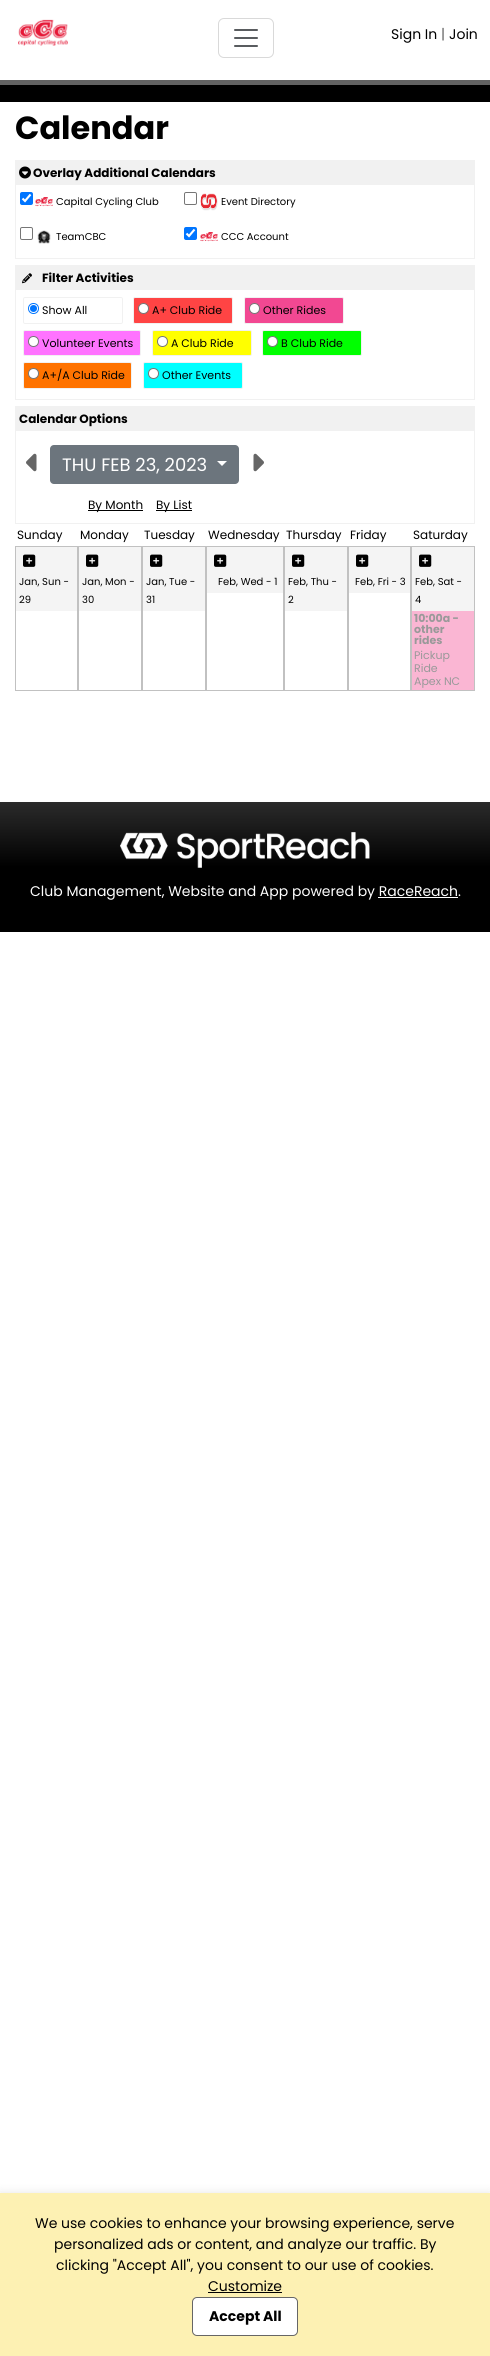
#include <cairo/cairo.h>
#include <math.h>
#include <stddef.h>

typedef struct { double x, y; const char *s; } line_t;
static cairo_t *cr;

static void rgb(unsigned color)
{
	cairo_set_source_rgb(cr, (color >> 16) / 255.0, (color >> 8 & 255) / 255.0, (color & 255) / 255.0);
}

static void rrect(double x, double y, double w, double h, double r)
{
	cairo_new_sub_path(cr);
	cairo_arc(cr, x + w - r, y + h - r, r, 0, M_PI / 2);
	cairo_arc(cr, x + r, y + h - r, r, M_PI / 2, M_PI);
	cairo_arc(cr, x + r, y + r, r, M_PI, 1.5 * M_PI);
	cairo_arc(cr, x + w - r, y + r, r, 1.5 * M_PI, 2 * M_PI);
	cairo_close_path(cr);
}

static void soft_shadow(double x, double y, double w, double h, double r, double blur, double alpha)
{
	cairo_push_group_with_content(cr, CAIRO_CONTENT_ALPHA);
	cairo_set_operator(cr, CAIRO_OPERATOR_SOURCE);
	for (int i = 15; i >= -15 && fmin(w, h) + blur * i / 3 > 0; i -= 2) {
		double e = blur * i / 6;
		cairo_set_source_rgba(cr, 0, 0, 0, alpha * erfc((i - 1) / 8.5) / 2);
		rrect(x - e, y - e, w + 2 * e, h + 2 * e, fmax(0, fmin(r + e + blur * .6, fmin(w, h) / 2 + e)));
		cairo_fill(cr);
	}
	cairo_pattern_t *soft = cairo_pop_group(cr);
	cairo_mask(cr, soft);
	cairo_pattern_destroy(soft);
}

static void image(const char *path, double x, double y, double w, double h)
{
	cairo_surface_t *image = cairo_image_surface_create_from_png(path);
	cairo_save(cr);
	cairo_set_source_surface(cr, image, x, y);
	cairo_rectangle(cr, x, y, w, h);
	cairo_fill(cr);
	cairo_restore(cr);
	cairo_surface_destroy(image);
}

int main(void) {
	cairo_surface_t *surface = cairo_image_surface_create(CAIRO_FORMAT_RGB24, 490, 2356);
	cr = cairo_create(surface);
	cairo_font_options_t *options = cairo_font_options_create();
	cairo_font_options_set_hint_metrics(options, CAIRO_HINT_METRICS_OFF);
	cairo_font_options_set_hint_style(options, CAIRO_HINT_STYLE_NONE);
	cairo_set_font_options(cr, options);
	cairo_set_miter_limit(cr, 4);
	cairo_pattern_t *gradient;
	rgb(0xffffff);
	cairo_paint(cr);
	rgb(0x636363);
	cairo_rectangle(cr, 0, 80, 490, 5);
	cairo_fill(cr);
	image("img/1.png", 18, 19, 50, 27);
	rrect(218.5, 18.5, 55, 39, 5.5);
	rgb(0xd9d9d9);
	cairo_set_line_width(cr, 1);
	cairo_stroke(cr);
	image("img/2.png", 234, 29, 24, 18);
	rgb(0x000000);
	cairo_rectangle(cr, 0, 85, 490, 17);
	cairo_fill(cr);
	cairo_rectangle(cr, 15.5, 160.5, 459, 98);
	rgb(0xf1f1f1);
	cairo_stroke(cr);
	cairo_rectangle(cr, 16, 161, 458, 24);
	cairo_fill(cr);
	image("img/3.png", 19, 166, 12, 13);
	rgb(0x0075ff);
	rrect(20, 192, 13, 13, 2);
	cairo_fill(cr);
	cairo_new_path(cr);
	cairo_move_to(cr, 22.5, 198.5);
	cairo_line_to(cr, 25, 201);
	cairo_line_to(cr, 30.5, 194.5);
	rgb(0xffffff);
	cairo_set_line_width(cr, 2.1);
	cairo_stroke(cr);
	image("img/4.png", 35, 197, 18, 10);
	rrect(184.5, 192.5, 12, 12, 1.5);
	rgb(0x767676);
	cairo_set_line_width(cr, 1);
	cairo_stroke(cr);
	image("img/5.png", 200, 193, 18, 18);
	rrect(20.5, 227.5, 12, 12, 1.5);
	cairo_stroke(cr);
	image("img/6.png", 37, 230, 14, 14);
	rgb(0x0075ff);
	rrect(184, 227, 13, 13, 2);
	cairo_fill(cr);
	cairo_new_path(cr);
	cairo_move_to(cr, 186.5, 233.5);
	cairo_line_to(cr, 189, 236);
	cairo_line_to(cr, 194.5, 229.5);
	rgb(0xffffff);
	cairo_set_line_width(cr, 2.1);
	cairo_stroke(cr);
	image("img/7.png", 200, 232, 18, 10);
	cairo_rectangle(cr, 15.5, 265.5, 459, 134);
	rgb(0xf1f1f1);
	cairo_set_line_width(cr, 1);
	cairo_stroke(cr);
	cairo_rectangle(cr, 16, 266, 458, 24);
	cairo_fill(cr);
	image("img/8.png", 22, 273, 10, 11);
	rrect(23.5, 297.5, 99, 26, 1.5);
	cairo_stroke(cr);
	cairo_arc(cr, 33.5, 308.5, 5, 0, 2 * M_PI);
	rgb(0x0075ff);
	cairo_stroke(cr);
	cairo_arc(cr, 33.5, 308.5, 3.5, 0, 2 * M_PI);
	cairo_fill(cr);
	rgb(0xff4444);
	rrect(133.5, 297.5, 99, 26, 1.5);
	cairo_fill_preserve(cr);
	rgb(0xf1f1f1);
	cairo_stroke(cr);
	rgb(0xffffff);
	cairo_arc(cr, 143.5, 308.5, 5, 0, 2 * M_PI);
	cairo_fill_preserve(cr);
	rgb(0x767676);
	cairo_stroke(cr);
	rgb(0xf24892);
	rrect(244.5, 297.5, 99, 26, 1.5);
	cairo_fill_preserve(cr);
	rgb(0xf1f1f1);
	cairo_stroke(cr);
	rgb(0xffffff);
	cairo_arc(cr, 254.5, 308.5, 5, 0, 2 * M_PI);
	cairo_fill_preserve(cr);
	rgb(0x767676);
	cairo_stroke(cr);
	rgb(0xff73ff);
	rrect(23.5, 330.5, 117, 25, 1.5);
	cairo_fill_preserve(cr);
	rgb(0xf1f1f1);
	cairo_stroke(cr);
	rgb(0xffffff);
	cairo_arc(cr, 33.5, 341.5, 5, 0, 2 * M_PI);
	cairo_fill_preserve(cr);
	rgb(0x767676);
	cairo_stroke(cr);
	rgb(0xffff00);
	rrect(152.5, 330.5, 99, 25, 1.5);
	cairo_fill_preserve(cr);
	rgb(0xf1f1f1);
	cairo_stroke(cr);
	rgb(0xffffff);
	cairo_arc(cr, 162.5, 341.5, 5, 0, 2 * M_PI);
	cairo_fill_preserve(cr);
	rgb(0x767676);
	cairo_stroke(cr);
	rgb(0x00ff00);
	rrect(262.5, 330.5, 99, 25, 1.5);
	cairo_fill_preserve(cr);
	rgb(0xf1f1f1);
	cairo_stroke(cr);
	rgb(0xffffff);
	cairo_arc(cr, 272.5, 341.5, 5, 0, 2 * M_PI);
	cairo_fill_preserve(cr);
	rgb(0x767676);
	cairo_stroke(cr);
	rgb(0xff7300);
	rrect(23.5, 362.5, 108, 26, 1.5);
	cairo_fill_preserve(cr);
	rgb(0xf1f1f1);
	cairo_stroke(cr);
	rgb(0xffffff);
	cairo_arc(cr, 33.5, 373.5, 5, 0, 2 * M_PI);
	cairo_fill_preserve(cr);
	rgb(0x767676);
	cairo_stroke(cr);
	rgb(0x00ffff);
	rrect(143.5, 362.5, 99, 26, 1.5);
	cairo_fill_preserve(cr);
	rgb(0xf1f1f1);
	cairo_stroke(cr);
	rgb(0xffffff);
	cairo_arc(cr, 153.5, 373.5, 5, 0, 2 * M_PI);
	cairo_fill_preserve(cr);
	rgb(0x767676);
	cairo_stroke(cr);
	cairo_rectangle(cr, 15.5, 406.5, 459, 117);
	rgb(0xf1f1f1);
	cairo_stroke(cr);
	cairo_rectangle(cr, 16, 407, 458, 24);
	cairo_fill(cr);
	image("img/9.png", 26, 453, 11, 19);
	rgb(0x6c757d);
	rrect(49, 444, 191, 41, 5);
	cairo_fill_preserve(cr);
	rgb(0xffffff);
	cairo_set_line_width(cr, 2);
	cairo_stroke(cr);
	cairo_new_path(cr);
	cairo_move_to(cr, 217, 461);
	cairo_line_to(cr, 227, 461);
	cairo_line_to(cr, 222, 466);
	cairo_close_path(cr);
	cairo_fill(cr);
	image("img/10.png", 253, 453, 11, 19);
	rgb(0x000000);
	cairo_rectangle(cr, 88, 510, 55, 1);
	cairo_fill(cr);
	cairo_rectangle(cr, 156, 510, 36, 1);
	cairo_fill(cr);
	cairo_rectangle(cr, 15.5, 546.5, 62, 144);
	rgb(0xc1c1c1);
	cairo_set_line_width(cr, 1);
	cairo_stroke(cr);
	rgb(0xf4f4f4);
	cairo_rectangle(cr, 16, 547, 61, 64);
	cairo_fill(cr);
	image("img/11.png", 23, 554, 13, 13);
	cairo_rectangle(cr, 78.5, 546.5, 63, 144);
	rgb(0xc1c1c1);
	cairo_stroke(cr);
	rgb(0xf4f4f4);
	cairo_rectangle(cr, 79, 547, 62, 64);
	cairo_fill(cr);
	image("img/11.png", 86, 554, 13, 13);
	cairo_rectangle(cr, 142.5, 546.5, 63, 144);
	rgb(0xc1c1c1);
	cairo_stroke(cr);
	rgb(0xf4f4f4);
	cairo_rectangle(cr, 143, 547, 62, 64);
	cairo_fill(cr);
	image("img/11.png", 150, 554, 13, 13);
	cairo_rectangle(cr, 206.5, 546.5, 77, 144);
	rgb(0xc1c1c1);
	cairo_stroke(cr);
	rgb(0xf4f4f4);
	cairo_rectangle(cr, 207, 547, 76, 46);
	cairo_fill(cr);
	image("img/11.png", 214, 554, 13, 13);
	cairo_rectangle(cr, 284.5, 546.5, 63, 144);
	rgb(0xc1c1c1);
	cairo_stroke(cr);
	rgb(0xf4f4f4);
	cairo_rectangle(cr, 285, 547, 62, 64);
	cairo_fill(cr);
	image("img/11.png", 292, 554, 13, 13);
	cairo_rectangle(cr, 348.5, 546.5, 62, 144);
	rgb(0xc1c1c1);
	cairo_stroke(cr);
	rgb(0xf4f4f4);
	cairo_rectangle(cr, 349, 547, 61, 46);
	cairo_fill(cr);
	image("img/11.png", 356, 554, 13, 13);
	cairo_rectangle(cr, 411.5, 546.5, 63, 144);
	rgb(0xc1c1c1);
	cairo_stroke(cr);
	rgb(0xf4f4f4);
	cairo_rectangle(cr, 412, 547, 62, 64);
	cairo_fill(cr);
	image("img/11.png", 419, 554, 13, 13);
	rgb(0xfab6d3);
	cairo_rectangle(cr, 412, 611, 62, 79);
	cairo_fill(cr);
	gradient = cairo_pattern_create_linear(245, 802, 245, 932);
	cairo_pattern_add_color_stop_rgba(gradient, 0, 0.169, 0.169, 0.169, 1);
	cairo_pattern_add_color_stop_rgba(gradient, 0.5, 0, 0, 0, 1);
	cairo_set_source(cr, gradient);
	cairo_pattern_destroy(gradient);
	cairo_rectangle(cr, 0, 802, 490, 130);
	cairo_fill(cr);
	image("img/12.png", 120, 832, 250, 36);
	rgb(0xffffff);
	cairo_rectangle(cr, 378, 897, 80, 1);
	cairo_fill(cr);
	rgb(0x000000);
	soft_shadow(0, 2193, 490, 163, 0, 5, 0.1);
	rgb(0xfdf1b3);
	cairo_rectangle(cr, 0, 2193, 490, 163);
	cairo_fill(cr);
	rgb(0x000000);
	cairo_rectangle(cr, 208, 2292, 74, 1);
	cairo_fill(cr);
	rgb(0xffffff);
	rrect(192.5, 2297.5, 105, 38, 4.5);
	cairo_fill_preserve(cr);
	rgb(0x666666);
	cairo_stroke(cr);
	cairo_select_font_face(cr, "Poppins", CAIRO_FONT_SLANT_NORMAL, CAIRO_FONT_WEIGHT_NORMAL);
	cairo_set_font_size(cr, 14);
	rgb(0x000000);
	cairo_move_to(cr, 391, 39);
	cairo_show_text(cr, "Sign In");
	rgb(0x636363);
	cairo_move_to(cr, 441, 39);
	cairo_show_text(cr, "|");
	rgb(0x000000);
	cairo_move_to(cr, 449, 39);
	cairo_show_text(cr, "Join");
	cairo_select_font_face(cr, "Poppins", CAIRO_FONT_SLANT_NORMAL, CAIRO_FONT_WEIGHT_BOLD);
	cairo_set_font_size(cr, 32);
	cairo_move_to(cr, 15, 139);
	cairo_show_text(cr, "Calendar");
	cairo_set_font_size(cr, 12);
	cairo_move_to(cr, 33, 177);
	cairo_show_text(cr, "Overlay Additional Calendars");
	cairo_select_font_face(cr, "Poppins", CAIRO_FONT_SLANT_NORMAL, CAIRO_FONT_WEIGHT_NORMAL);
	cairo_set_font_size(cr, 10);
	{
		static const line_t items[] = {
			{56, 205, "Capital Cycling Club"},
			{221, 205, "Event Directory"},
			{56, 240, "TeamCBC"},
			{221, 240, "CCC Account"},
		};
		for (size_t i = 0; i < sizeof items / sizeof *items; i++) {
			cairo_move_to(cr, items[i].x, items[i].y);
			cairo_show_text(cr, items[i].s);
		}
	}
	cairo_select_font_face(cr, "Poppins", CAIRO_FONT_SLANT_NORMAL, CAIRO_FONT_WEIGHT_BOLD);
	cairo_set_font_size(cr, 12);
	cairo_move_to(cr, 42, 282);
	cairo_show_text(cr, "Filter Activities");
	cairo_select_font_face(cr, "Poppins", CAIRO_FONT_SLANT_NORMAL, CAIRO_FONT_WEIGHT_NORMAL);
	cairo_set_font_size(cr, 11);
	{
		static const line_t items[] = {
			{42, 314, "Show All"},
			{152, 314, "A+ Club Ride"},
			{263, 314, "Other Rides"},
			{42, 347, "Volunteer Events"},
			{171, 347, "A Club Ride"},
			{281, 347, "B Club Ride"},
			{42, 379, "A+/A Club Ride"},
			{162, 379, "Other Events"},
		};
		for (size_t i = 0; i < sizeof items / sizeof *items; i++) {
			cairo_move_to(cr, items[i].x, items[i].y);
			cairo_show_text(cr, items[i].s);
		}
	}
	cairo_select_font_face(cr, "Poppins", CAIRO_FONT_SLANT_NORMAL, CAIRO_FONT_WEIGHT_BOLD);
	cairo_set_font_size(cr, 12);
	cairo_move_to(cr, 19, 423);
	cairo_show_text(cr, "Calendar Options");
	cairo_select_font_face(cr, "Poppins", CAIRO_FONT_SLANT_NORMAL, CAIRO_FONT_WEIGHT_NORMAL);
	cairo_set_font_size(cr, 18);
	rgb(0xffffff);
	cairo_move_to(cr, 62, 471);
	cairo_show_text(cr, "THU FEB 23, 2023");
	cairo_set_font_size(cr, 12);
	rgb(0x000000);
	{
		static const line_t items[] = {
			{88, 509, "By Month"},
			{156, 509, "By List"},
			{17, 539, "Sunday"},
			{80, 539, "Monday"},
			{144, 539, "Tuesday"},
			{208, 539, "Wednesday"},
			{286, 539, "Thursday"},
			{350, 539, "Friday"},
			{413, 539, "Saturday"},
		};
		for (size_t i = 0; i < sizeof items / sizeof *items; i++) {
			cairo_move_to(cr, items[i].x, items[i].y);
			cairo_show_text(cr, items[i].s);
		}
	}
	cairo_set_font_size(cr, 10);
	{
		static const line_t items[] = {
			{19, 585, "Jan, Sun -"},
			{19, 603, "29"},
			{82, 585, "Jan, Mon -"},
			{82, 603, "30"},
			{146, 585, "Jan, Tue -"},
			{146, 603, "31"},
			{218, 585, "Feb, Wed - 1"},
			{288, 585, "Feb, Thu -"},
			{288, 603, "2"},
			{355, 585, "Feb, Fri - 3"},
			{415, 585, "Feb, Sat -"},
			{415, 603, "4"},
		};
		for (size_t i = 0; i < sizeof items / sizeof *items; i++) {
			cairo_move_to(cr, items[i].x, items[i].y);
			cairo_show_text(cr, items[i].s);
		}
	}
	cairo_select_font_face(cr, "Poppins", CAIRO_FONT_SLANT_NORMAL, CAIRO_FONT_WEIGHT_BOLD);
	cairo_set_font_size(cr, 11);
	rgb(0x999999);
	{
		static const line_t items[] = {
			{414, 622, "10:00a -"},
			{414, 633, "other"},
			{414, 644, "rides"},
		};
		for (size_t i = 0; i < sizeof items / sizeof *items; i++) {
			cairo_move_to(cr, items[i].x, items[i].y);
			cairo_show_text(cr, items[i].s);
		}
	}
	cairo_select_font_face(cr, "Poppins", CAIRO_FONT_SLANT_NORMAL, CAIRO_FONT_WEIGHT_NORMAL);
	{
		static const line_t items[] = {
			{414, 659, "Pickup"},
			{414, 672, "Ride"},
			{414, 685, "Apex NC"},
		};
		for (size_t i = 0; i < sizeof items / sizeof *items; i++) {
			cairo_move_to(cr, items[i].x, items[i].y);
			cairo_show_text(cr, items[i].s);
		}
	}
	cairo_set_font_size(cr, 14);
	rgb(0xffffff);
	cairo_move_to(cr, 30, 896);
	cairo_show_text(cr, "Club Management, Website and App powered by RaceReach.");
	rgb(0x000000);
	{
		static const line_t items[] = {
			{35, 2228, "We use cookies to enhance your browsing experience, serve"},
			{54, 2249, "personalized ads or content, and analyze our traffic. By"},
			{56, 2270, "clicking \"Accept All\", you consent to our use of cookies."},
			{208, 2291, "Customize"},
		};
		for (size_t i = 0; i < sizeof items / sizeof *items; i++) {
			cairo_move_to(cr, items[i].x, items[i].y);
			cairo_show_text(cr, items[i].s);
		}
	}
	cairo_select_font_face(cr, "Poppins", CAIRO_FONT_SLANT_NORMAL, CAIRO_FONT_WEIGHT_BOLD);
	cairo_move_to(cr, 209, 2321);
	cairo_show_text(cr, "Accept All");
	cairo_surface_write_to_png(surface, "page.png");
	cairo_font_options_destroy(options);
	cairo_destroy(cr);
	cairo_surface_destroy(surface);
	return 0;
}
